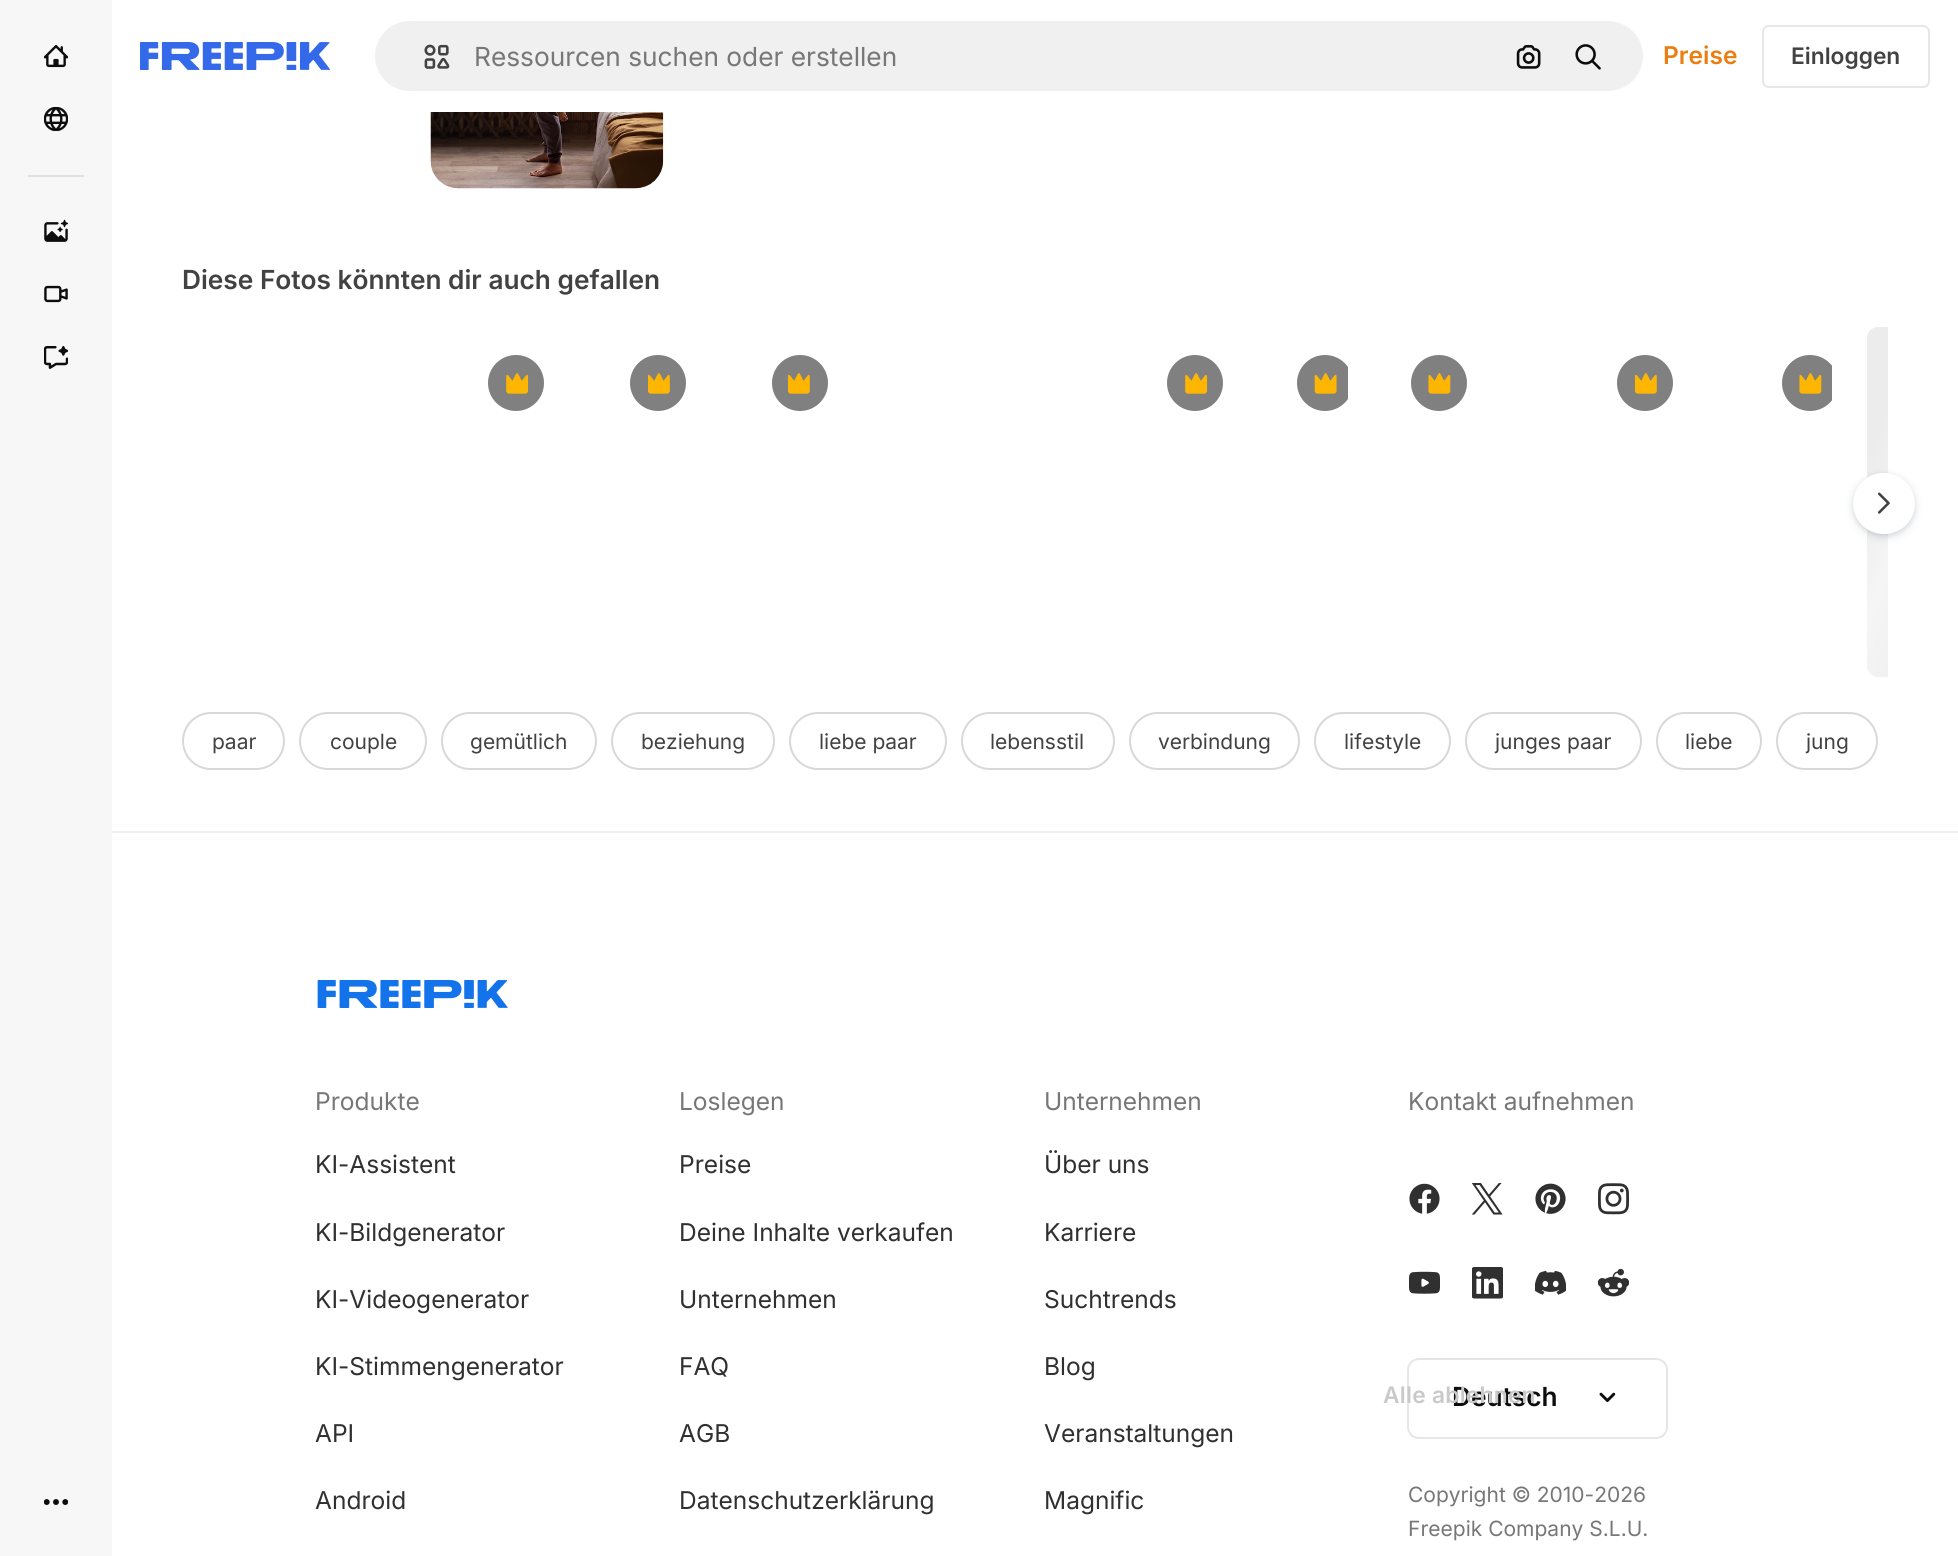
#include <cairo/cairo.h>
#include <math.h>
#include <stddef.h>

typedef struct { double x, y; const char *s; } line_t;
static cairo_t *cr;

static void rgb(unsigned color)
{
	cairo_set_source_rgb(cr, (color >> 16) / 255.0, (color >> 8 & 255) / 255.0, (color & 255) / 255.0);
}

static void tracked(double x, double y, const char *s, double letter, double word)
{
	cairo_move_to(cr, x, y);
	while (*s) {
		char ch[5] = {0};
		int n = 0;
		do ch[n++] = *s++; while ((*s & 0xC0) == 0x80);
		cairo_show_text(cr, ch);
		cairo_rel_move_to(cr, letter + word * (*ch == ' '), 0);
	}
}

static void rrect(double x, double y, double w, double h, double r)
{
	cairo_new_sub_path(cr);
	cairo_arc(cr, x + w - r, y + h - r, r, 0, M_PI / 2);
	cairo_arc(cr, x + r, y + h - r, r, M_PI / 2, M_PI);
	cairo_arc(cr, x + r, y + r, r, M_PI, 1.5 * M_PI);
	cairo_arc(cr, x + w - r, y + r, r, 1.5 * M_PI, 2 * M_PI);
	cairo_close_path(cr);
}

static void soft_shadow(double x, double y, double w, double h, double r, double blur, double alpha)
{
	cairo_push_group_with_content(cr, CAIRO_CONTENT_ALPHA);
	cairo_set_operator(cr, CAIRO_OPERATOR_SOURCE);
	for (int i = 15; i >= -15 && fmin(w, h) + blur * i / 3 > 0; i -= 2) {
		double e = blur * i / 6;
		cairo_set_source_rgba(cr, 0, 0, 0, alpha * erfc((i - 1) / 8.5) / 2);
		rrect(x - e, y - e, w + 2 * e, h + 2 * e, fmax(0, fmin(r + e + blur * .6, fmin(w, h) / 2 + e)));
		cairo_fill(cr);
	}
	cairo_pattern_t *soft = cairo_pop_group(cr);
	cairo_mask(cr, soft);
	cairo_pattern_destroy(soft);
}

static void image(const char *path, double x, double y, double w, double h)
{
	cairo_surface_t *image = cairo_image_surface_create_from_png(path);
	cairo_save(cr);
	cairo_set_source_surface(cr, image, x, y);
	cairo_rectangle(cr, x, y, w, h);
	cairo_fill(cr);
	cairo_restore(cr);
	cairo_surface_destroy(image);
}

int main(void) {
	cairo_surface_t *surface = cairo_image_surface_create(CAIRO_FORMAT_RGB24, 1958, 1556);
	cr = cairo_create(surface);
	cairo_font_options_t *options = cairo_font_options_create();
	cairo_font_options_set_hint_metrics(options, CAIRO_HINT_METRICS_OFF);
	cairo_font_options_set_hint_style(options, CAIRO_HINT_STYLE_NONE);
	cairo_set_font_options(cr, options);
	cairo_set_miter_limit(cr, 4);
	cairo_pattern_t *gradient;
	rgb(0xffffff);
	cairo_paint(cr);
	rgb(0xf7f7f7);
	cairo_rectangle(cr, 0, 0, 112, 1556);
	cairo_fill(cr);
	image("img/1.png", 44, 45, 24, 23);
	image("img/2.png", 44, 107, 24, 24);
	rgb(0xe0e0e0);
	cairo_rectangle(cr, 28, 175, 56, 2);
	cairo_fill(cr);
	image("img/3.png", 44, 219, 24, 23);
	image("img/4.png", 44, 285, 24, 18);
	image("img/5.png", 44, 346, 24, 23);
	image("img/6.png", 44, 1499, 24, 6);
	image("img/7.png", 140, 42, 190, 28);
	rgb(0xf0f0f0);
	rrect(374, 20, 1270, 72, 36);
	cairo_fill_preserve(cr);
	rgb(0xffffff);
	cairo_stroke(cr);
	image("img/8.png", 424, 44, 26, 25);
	image("img/9.png", 1516, 45, 25, 24);
	image("img/10.png", 1575, 44, 26, 26);
	rrect(1763, 26, 166, 61, 6);
	rgb(0xe7e7e7);
	cairo_stroke(cr);
	image("img/11.png", 430, 112, 234, 77);
	rgb(0x808080);
	cairo_arc(cr, 516, 383, 28, 0, 2 * M_PI);
	cairo_fill(cr);
	image("img/12.png", 506, 373, 23, 21);
	cairo_arc(cr, 658, 383, 28, 0, 2 * M_PI);
	cairo_fill(cr);
	image("img/13.png", 648, 373, 22, 21);
	cairo_arc(cr, 800, 383, 28, 0, 2 * M_PI);
	cairo_fill(cr);
	image("img/13.png", 788, 373, 22, 21);
	cairo_arc(cr, 1195, 383, 28, 0, 2 * M_PI);
	cairo_fill(cr);
	image("img/12.png", 1185, 373, 23, 21);
	cairo_save(cr);
	rrect(1269, 327, 79, 350, 28);
	cairo_clip(cr);
	cairo_arc(cr, 1325, 383, 28, 0, 2 * M_PI);
	cairo_fill(cr);
	cairo_restore(cr);
	image("img/14.png", 1314, 373, 23, 21);
	cairo_arc(cr, 1439, 383, 28, 0, 2 * M_PI);
	cairo_fill(cr);
	image("img/15.png", 1428, 373, 23, 21);
	cairo_arc(cr, 1645, 383, 28, 0, 2 * M_PI);
	cairo_fill(cr);
	image("img/13.png", 1635, 373, 22, 21);
	cairo_save(cr);
	rrect(1754, 327, 78, 350, 28);
	cairo_clip(cr);
	cairo_arc(cr, 1810, 383, 28, 0, 2 * M_PI);
	cairo_fill(cr);
	cairo_restore(cr);
	image("img/15.png", 1799, 373, 23, 21);
	gradient = cairo_pattern_create_linear(1838, 406, 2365, 598);
	cairo_pattern_add_color_stop_rgba(gradient, 0.08, 0.925, 0.925, 0.925, 1);
	cairo_pattern_add_color_stop_rgba(gradient, 0.18, 0.961, 0.961, 0.961, 1);
	cairo_pattern_add_color_stop_rgba(gradient, 0.33, 0.925, 0.925, 0.925, 1);
	cairo_set_source(cr, gradient);
	cairo_pattern_destroy(gradient);
	cairo_new_path(cr);
	cairo_move_to(cr, 1878, 327);
	cairo_line_to(cr, 1888, 327);
	cairo_line_to(cr, 1888, 677);
	cairo_line_to(cr, 1878, 677);
	cairo_curve_to(cr, 1872, 677, 1867, 672, 1867, 666);
	cairo_line_to(cr, 1867, 338);
	cairo_curve_to(cr, 1867, 332, 1872, 327, 1878, 327);
	cairo_close_path(cr);
	cairo_fill(cr);
	rgb(0x374957);
	soft_shadow(1853, 476, 62, 61, 30.5, 4.5, 0.15);
	soft_shadow(1853, 474, 62, 62, 31, 2, 0.1);
	rgb(0xffffff);
	rrect(1853, 473, 62, 61, 30.5);
	cairo_fill(cr);
	image("img/16.png", 1878, 492, 12, 22);
	rrect(183, 713, 101, 56, 28);
	rgb(0xd8d8d8);
	cairo_stroke(cr);
	rrect(300, 713, 126, 56, 28);
	cairo_stroke(cr);
	rrect(442, 713, 154, 56, 28);
	cairo_stroke(cr);
	rrect(612, 713, 162, 56, 28);
	cairo_stroke(cr);
	rrect(790, 713, 156, 56, 28);
	cairo_stroke(cr);
	rrect(962, 713, 152, 56, 28);
	cairo_stroke(cr);
	rrect(1130, 713, 169, 56, 28);
	cairo_stroke(cr);
	rrect(1315, 713, 135, 56, 28);
	cairo_stroke(cr);
	rrect(1466, 713, 175, 56, 28);
	cairo_stroke(cr);
	rrect(1657, 713, 104, 56, 28);
	cairo_stroke(cr);
	rrect(1777, 713, 100, 56, 28);
	cairo_stroke(cr);
	rgb(0xf0f0f0);
	cairo_rectangle(cr, 112, 831, 1846, 2);
	cairo_fill(cr);
	image("img/17.png", 317, 980, 191, 28);
	image("img/18.png", 1409, 1183, 31, 31);
	image("img/19.png", 1472, 1183, 31, 32);
	image("img/20.png", 1535, 1183, 31, 31);
	image("img/21.png", 1598, 1183, 31, 32);
	image("img/22.png", 1409, 1271, 31, 23);
	image("img/23.png", 1472, 1267, 31, 32);
	image("img/24.png", 1535, 1270, 31, 25);
	image("img/25.png", 1598, 1268, 31, 29);
	rrect(1408, 1359, 259, 79, 11);
	rgb(0xe6e6e6);
	cairo_stroke(cr);
	image("img/26.png", 1599, 1392, 17, 10);
	cairo_select_font_face(cr, "Inter", CAIRO_FONT_SLANT_NORMAL, CAIRO_FONT_WEIGHT_NORMAL);
	cairo_set_font_size(cr, 26.25);
	rgb(0x777777);
	cairo_move_to(cr, 474, 66);
	cairo_show_text(cr, "Ressourcen suchen oder erstellen");
	cairo_select_font_face(cr, "Inter SemiBold", CAIRO_FONT_SLANT_NORMAL, CAIRO_FONT_WEIGHT_NORMAL);
	cairo_set_font_size(cr, 24.5);
	rgb(0xea7e11);
	cairo_move_to(cr, 1663, 64);
	cairo_show_text(cr, "Preise");
	cairo_set_font_size(cr, 22.75);
	rgb(0x424242);
	cairo_move_to(cr, 1791, 64);
	cairo_show_text(cr, "Einloggen");
	cairo_set_font_size(cr, 26.25);
	cairo_move_to(cr, 182, 289);
	cairo_show_text(cr, "Diese Fotos könnten dir auch gefallen");
	cairo_select_font_face(cr, "Inter", CAIRO_FONT_SLANT_NORMAL, CAIRO_FONT_WEIGHT_NORMAL);
	cairo_set_font_size(cr, 21);
	{
		static const line_t items[] = {
			{212, 749, "paar"},
			{330, 749, "couple"},
			{470, 749, "gemütlich"},
			{641, 749, "beziehung"},
			{819, 749, "liebe paar"},
			{990, 749, "lebensstil"},
			{1158, 749, "verbindung"},
			{1344, 749, "lifestyle"},
			{1495, 749, "junges paar"},
			{1685, 749, "liebe"},
			{1806, 749, "jung"},
		};
		for (size_t i = 0; i < sizeof items / sizeof *items; i++) {
			cairo_move_to(cr, items[i].x, items[i].y);
			cairo_show_text(cr, items[i].s);
		}
	}
	cairo_set_font_size(cr, 24.5);
	rgb(0x777777);
	cairo_move_to(cr, 315, 1110);
	cairo_show_text(cr, "Produkte");
	rgb(0x303030);
	{
		static const line_t items[] = {
			{315, 1173, "KI-Assistent"},
			{315, 1241, "KI-Bildgenerator"},
			{315, 1308, "KI-Videogenerator"},
			{315, 1375, "KI-Stimmengenerator"},
			{315, 1442, "API"},
			{315, 1509, "Android"},
		};
		for (size_t i = 0; i < sizeof items / sizeof *items; i++) {
			cairo_move_to(cr, items[i].x, items[i].y);
			cairo_show_text(cr, items[i].s);
		}
	}
	rgb(0x777777);
	cairo_move_to(cr, 679, 1110);
	cairo_show_text(cr, "Loslegen");
	rgb(0x303030);
	{
		static const line_t items[] = {
			{679, 1173, "Preise"},
			{679, 1241, "Deine Inhalte verkaufen"},
			{679, 1308, "Unternehmen"},
			{679, 1375, "FAQ"},
			{679, 1442, "AGB"},
			{679, 1509, "Datenschutzerklärung"},
		};
		for (size_t i = 0; i < sizeof items / sizeof *items; i++) {
			cairo_move_to(cr, items[i].x, items[i].y);
			cairo_show_text(cr, items[i].s);
		}
	}
	rgb(0x777777);
	cairo_move_to(cr, 1044, 1110);
	cairo_show_text(cr, "Unternehmen");
	rgb(0x303030);
	{
		static const line_t items[] = {
			{1044, 1173, "Über uns"},
			{1044, 1241, "Karriere"},
			{1044, 1308, "Suchtrends"},
			{1044, 1375, "Blog"},
			{1044, 1442, "Veranstaltungen"},
			{1044, 1509, "Magnific"},
		};
		for (size_t i = 0; i < sizeof items / sizeof *items; i++) {
			cairo_move_to(cr, items[i].x, items[i].y);
			cairo_show_text(cr, items[i].s);
		}
	}
	rgb(0x777777);
	cairo_move_to(cr, 1408, 1110);
	cairo_show_text(cr, "Kontakt aufnehmen");
	cairo_select_font_face(cr, "Inter SemiBold", CAIRO_FONT_SLANT_NORMAL, CAIRO_FONT_WEIGHT_NORMAL);
	cairo_set_font_size(cr, 26.25);
	rgb(0x0d0d0d);
	cairo_move_to(cr, 1452, 1406);
	cairo_show_text(cr, "Deutsch");
	cairo_select_font_face(cr, "Inter", CAIRO_FONT_SLANT_NORMAL, CAIRO_FONT_WEIGHT_NORMAL);
	cairo_set_font_size(cr, 21);
	rgb(0x777777);
	cairo_move_to(cr, 1408, 1502);
	cairo_show_text(cr, "Copyright © 2010-2026");
	cairo_move_to(cr, 1408, 1536);
	cairo_show_text(cr, "Freepik Company S.L.U.");
	cairo_select_font_face(cr, "Inter SemiBold", CAIRO_FONT_SLANT_NORMAL, CAIRO_FONT_WEIGHT_NORMAL);
	cairo_set_font_size(cr, 22.75);
	rgb(0xc9c9c9);
	tracked(1383, 1403, "Alle ablehnen", 0.25, 0);
	cairo_surface_write_to_png(surface, "page.png");
	cairo_font_options_destroy(options);
	cairo_destroy(cr);
	cairo_surface_destroy(surface);
	return 0;
}
